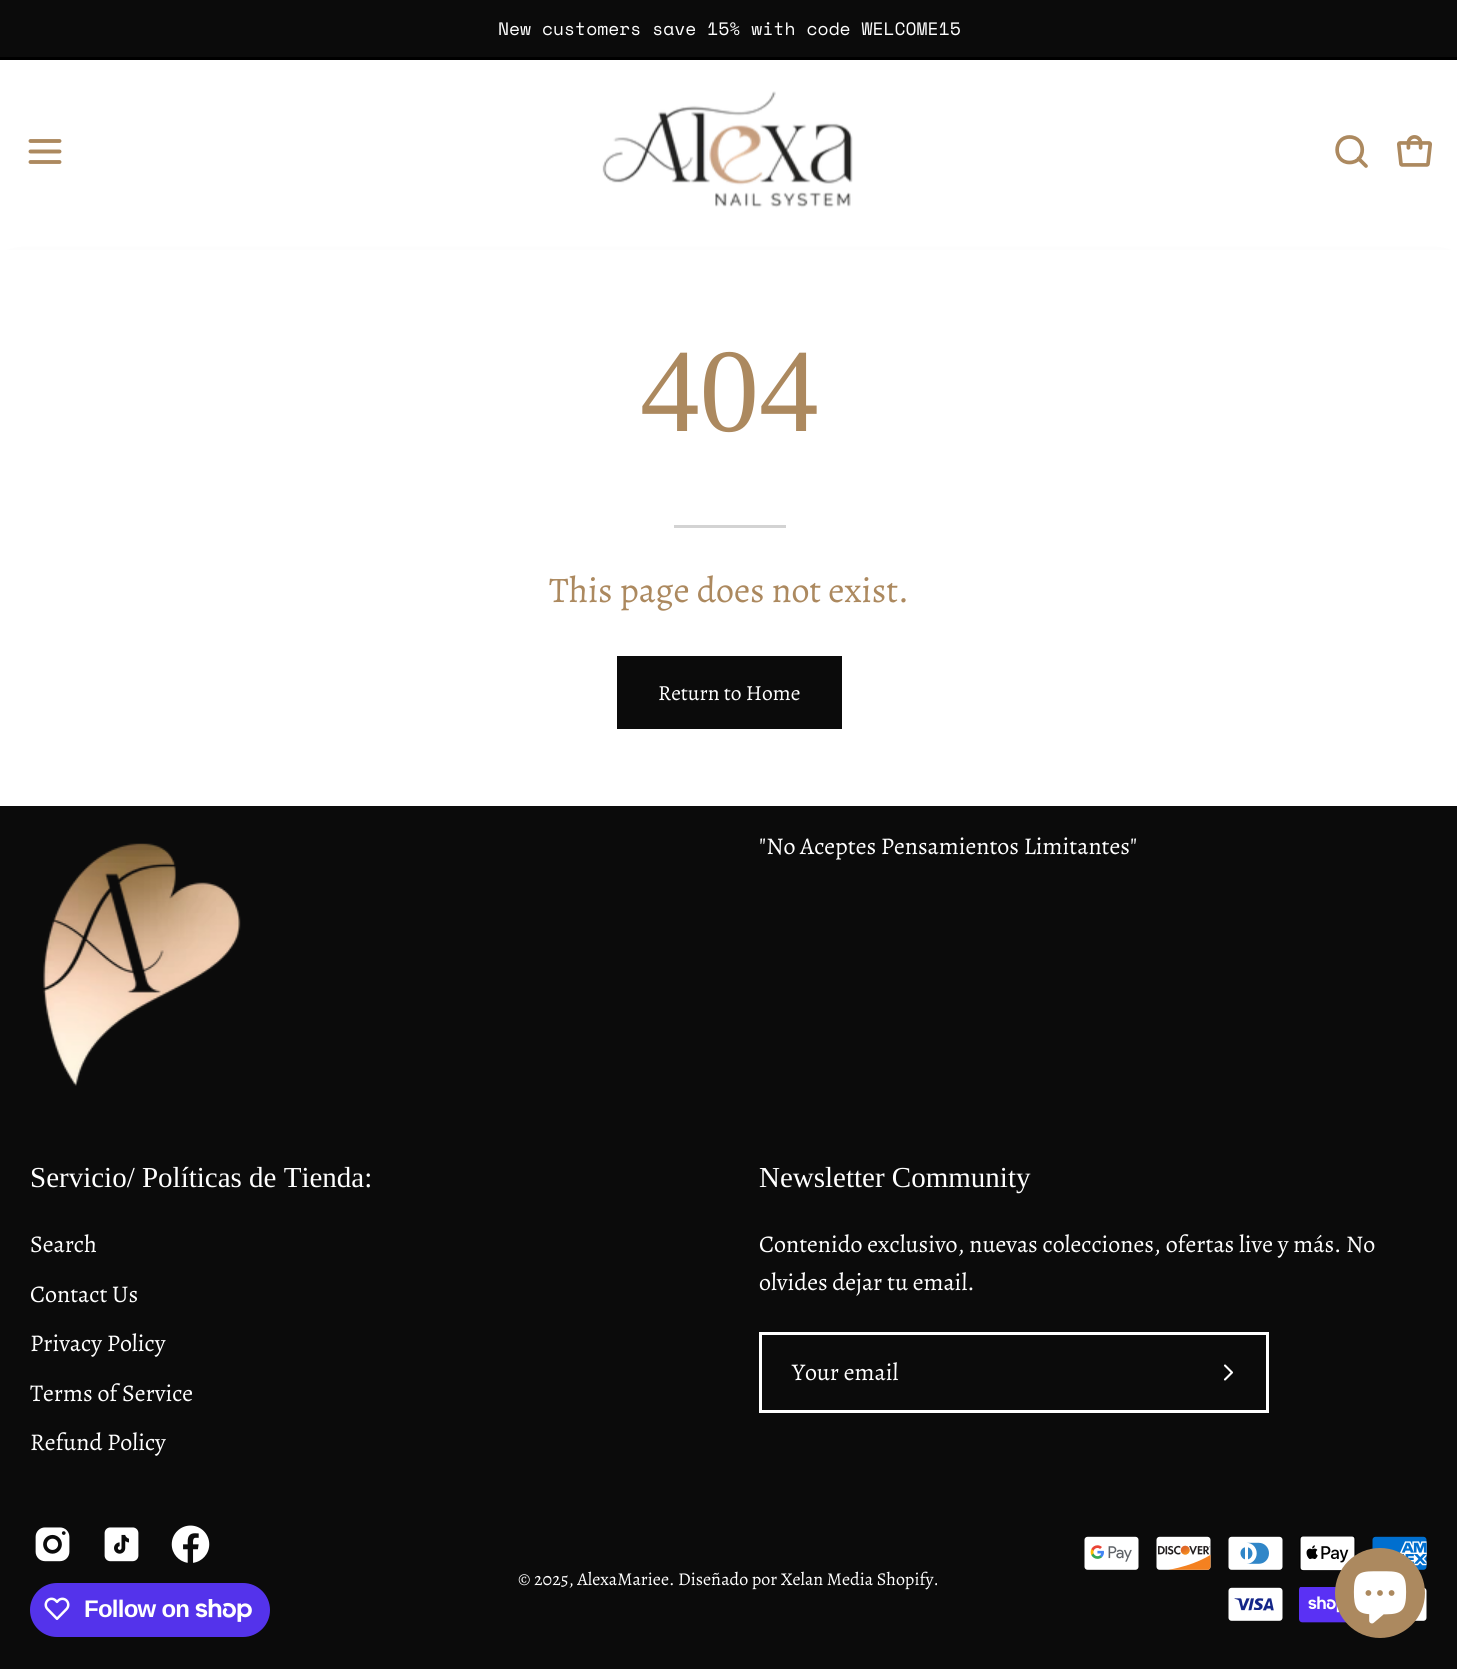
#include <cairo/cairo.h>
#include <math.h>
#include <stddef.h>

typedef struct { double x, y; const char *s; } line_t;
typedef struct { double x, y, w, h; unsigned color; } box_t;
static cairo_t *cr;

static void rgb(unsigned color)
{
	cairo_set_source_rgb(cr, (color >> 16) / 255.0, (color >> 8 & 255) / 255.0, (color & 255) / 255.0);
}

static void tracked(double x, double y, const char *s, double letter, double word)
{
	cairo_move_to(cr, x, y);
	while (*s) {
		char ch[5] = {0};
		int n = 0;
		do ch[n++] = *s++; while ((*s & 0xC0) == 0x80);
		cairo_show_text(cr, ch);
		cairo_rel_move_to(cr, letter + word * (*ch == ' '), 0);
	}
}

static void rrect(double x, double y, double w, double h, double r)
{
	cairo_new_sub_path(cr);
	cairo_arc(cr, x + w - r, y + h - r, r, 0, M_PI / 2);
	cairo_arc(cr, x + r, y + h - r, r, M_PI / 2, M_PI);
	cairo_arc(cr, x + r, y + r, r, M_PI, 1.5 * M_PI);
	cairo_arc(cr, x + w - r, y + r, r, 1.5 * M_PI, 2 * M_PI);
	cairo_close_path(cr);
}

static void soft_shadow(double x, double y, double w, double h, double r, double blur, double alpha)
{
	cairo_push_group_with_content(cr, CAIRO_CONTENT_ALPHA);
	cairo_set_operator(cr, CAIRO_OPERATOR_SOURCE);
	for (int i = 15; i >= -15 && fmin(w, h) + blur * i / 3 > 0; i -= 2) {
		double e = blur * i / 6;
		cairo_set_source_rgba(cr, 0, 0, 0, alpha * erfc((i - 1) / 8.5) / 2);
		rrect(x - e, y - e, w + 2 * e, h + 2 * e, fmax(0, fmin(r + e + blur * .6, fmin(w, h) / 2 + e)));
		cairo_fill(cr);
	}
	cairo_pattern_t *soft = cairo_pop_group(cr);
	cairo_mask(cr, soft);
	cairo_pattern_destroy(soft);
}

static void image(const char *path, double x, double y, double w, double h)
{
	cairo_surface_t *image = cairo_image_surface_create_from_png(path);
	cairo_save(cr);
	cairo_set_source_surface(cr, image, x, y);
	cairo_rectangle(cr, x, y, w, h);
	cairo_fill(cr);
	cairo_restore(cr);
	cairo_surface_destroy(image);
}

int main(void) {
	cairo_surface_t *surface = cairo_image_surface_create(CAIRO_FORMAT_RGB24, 1457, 1669);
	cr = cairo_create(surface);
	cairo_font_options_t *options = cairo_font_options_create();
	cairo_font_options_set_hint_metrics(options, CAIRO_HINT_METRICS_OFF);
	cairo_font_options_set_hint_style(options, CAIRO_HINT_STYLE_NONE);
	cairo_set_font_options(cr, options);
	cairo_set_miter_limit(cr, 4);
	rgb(0xffffff);
	cairo_paint(cr);
	rgb(0x0b0b0b);
	cairo_rectangle(cr, 0, 0, 1457, 57);
	cairo_fill(cr);
	rgb(0x000000);
	cairo_rectangle(cr, 0, 57, 1457, 3);
	cairo_fill(cr);
	cairo_new_path(cr);
	cairo_move_to(cr, 30.5, 151.5);
	cairo_line_to(cr, 59.5, 151.5);
	cairo_move_to(cr, 30.5, 141);
	cairo_line_to(cr, 59.5, 141);
	cairo_move_to(cr, 30.5, 162);
	cairo_line_to(cr, 59.5, 162);
	rgb(0xac895f);
	cairo_set_line_width(cr, 3.9);
	cairo_set_line_cap(cr, CAIRO_LINE_CAP_ROUND);
	cairo_set_line_join(cr, CAIRO_LINE_JOIN_ROUND);
	cairo_stroke(cr);
	image("img/1.png", 602, 91, 251, 117);
	cairo_new_path(cr);
	cairo_move_to(cr, 1349.5, 162.5);
	cairo_curve_to(cr, 1366.5, 162.5, 1366.5, 137, 1349.5, 137);
	cairo_curve_to(cr, 1333, 137, 1333, 162.5, 1349.5, 162.5);
	cairo_close_path(cr);
	cairo_move_to(cr, 1358.5, 158.5);
	cairo_line_to(cr, 1366, 166);
	cairo_set_line_width(cr, 3.7);
	cairo_stroke(cr);
	image("img/2.png", 1397, 135, 35, 32);
	rgb(0x0b0b0b);
	cairo_rectangle(cr, 0, 806, 1457, 863);
	cairo_fill(cr);
	image("img/3.png", 43, 843, 198, 243);
	rgb(0x0b0b0b);
	soft_shadow(15, 294, 1428, 534, 0, 19, 1);
	{
		static const box_t items[] = {
			{0, 250, 1457, 556, 0xffffff},
			{674, 525, 112, 3, 0xd3d3d3},
			{617, 656, 225, 73, 0x0b0b0b},
			{759, 1332, 510, 3, 0xffffff},
			{759, 1410, 429, 3, 0xffffff},
			{759, 1332, 3, 81, 0xffffff},
			{1266, 1332, 3, 81, 0xffffff},
			{1188, 1410, 81, 3, 0xffffff},
		};
		for (size_t i = 0; i < sizeof items / sizeof *items; i++) {
			rgb(items[i].color);
			cairo_rectangle(cr, items[i].x, items[i].y, items[i].w, items[i].h);
			cairo_fill(cr);
		}
	}
	cairo_new_path(cr);
	cairo_move_to(cr, 1225, 1365.5);
	cairo_line_to(cr, 1232, 1372.5);
	cairo_line_to(cr, 1225, 1379.5);
	cairo_set_line_width(cr, 2.1);
	cairo_stroke(cr);
	image("img/4.png", 1084, 1536, 55, 34);
	image("img/5.png", 1156, 1536, 55, 34);
	image("img/6.png", 1228, 1536, 55, 34);
	image("img/7.png", 1299, 1536, 57, 35);
	image("img/8.png", 1372, 1536, 55, 34);
	image("img/9.png", 1228, 1587, 55, 34);
	image("img/10.png", 1299, 1587, 48, 36);
	image("img/11.png", 1415, 1587, 12, 34);
	image("img/12.png", 35, 1527, 35, 35);
	image("img/13.png", 104, 1527, 35, 35);
	image("img/14.png", 171, 1525, 39, 38);
	rgb(0x5433eb);
	rrect(30, 1583, 240, 54, 27);
	cairo_fill(cr);
	image("img/15.png", 44, 1597, 26, 23);
	image("img/16.png", 195, 1599, 57, 23);
	rgb(0xac895f);
	cairo_arc(cr, 1380, 1593, 45, 0, 2 * M_PI);
	cairo_fill(cr);
	image("img/17.png", 1353, 1571, 54, 53);
	cairo_select_font_face(cr, "Space Mono", CAIRO_FONT_SLANT_NORMAL, CAIRO_FONT_WEIGHT_NORMAL);
	cairo_set_font_size(cr, 18);
	rgb(0xffffff);
	cairo_move_to(cr, 498, 35);
	cairo_show_text(cr, "New customers save 15% with code WELCOME15");
	cairo_select_font_face(cr, "Liberation Serif", CAIRO_FONT_SLANT_NORMAL, CAIRO_FONT_WEIGHT_NORMAL);
	cairo_set_font_size(cr, 119);
	rgb(0xac895f);
	cairo_move_to(cr, 640, 431);
	cairo_show_text(cr, "404");
	cairo_select_font_face(cr, "Alegreya", CAIRO_FONT_SLANT_NORMAL, CAIRO_FONT_WEIGHT_NORMAL);
	cairo_set_font_size(cr, 36);
	cairo_move_to(cr, 549, 602);
	cairo_show_text(cr, "This page does not exist.");
	cairo_set_font_size(cr, 21.5);
	rgb(0xffffff);
	cairo_move_to(cr, 658, 700);
	cairo_show_text(cr, "Return to Home");
	cairo_set_font_size(cr, 24);
	cairo_move_to(cr, 759, 854);
	cairo_show_text(cr, "\"No Aceptes Pensamientos Limitantes\"");
	cairo_select_font_face(cr, "Liberation Serif", CAIRO_FONT_SLANT_NORMAL, CAIRO_FONT_WEIGHT_NORMAL);
	cairo_set_font_size(cr, 29);
	cairo_move_to(cr, 30, 1187);
	cairo_show_text(cr, "Servicio/ Políticas de Tienda:");
	cairo_select_font_face(cr, "Alegreya", CAIRO_FONT_SLANT_NORMAL, CAIRO_FONT_WEIGHT_NORMAL);
	cairo_set_font_size(cr, 24);
	{
		static const line_t items[] = {
			{30, 1252, "Search"},
			{30, 1302, "Contact Us"},
			{30, 1351, "Privacy Policy"},
			{30, 1401, "Terms of Service"},
			{30, 1450, "Refund Policy"},
		};
		for (size_t i = 0; i < sizeof items / sizeof *items; i++) {
			cairo_move_to(cr, items[i].x, items[i].y);
			cairo_show_text(cr, items[i].s);
		}
	}
	cairo_select_font_face(cr, "Liberation Serif", CAIRO_FONT_SLANT_NORMAL, CAIRO_FONT_WEIGHT_NORMAL);
	cairo_set_font_size(cr, 29);
	cairo_move_to(cr, 759, 1187);
	cairo_show_text(cr, "Newsletter Community");
	cairo_select_font_face(cr, "Alegreya", CAIRO_FONT_SLANT_NORMAL, CAIRO_FONT_WEIGHT_NORMAL);
	cairo_set_font_size(cr, 24);
	{
		static const line_t items[] = {
			{759, 1252, "Contenido exclusivo, nuevas colecciones, ofertas live y más. No"},
			{759, 1290, "olvides dejar tu email."},
			{792, 1380, "Your email"},
		};
		for (size_t i = 0; i < sizeof items / sizeof *items; i++) {
			cairo_move_to(cr, items[i].x, items[i].y);
			cairo_show_text(cr, items[i].s);
		}
	}
	cairo_set_font_size(cr, 18);
	cairo_move_to(cr, 518, 1585);
	cairo_show_text(cr, "© 2025, AlexaMariee. Diseñado por Xelan Media Shopify.");
	cairo_select_font_face(cr, "Liberation Sans", CAIRO_FONT_SLANT_NORMAL, CAIRO_FONT_WEIGHT_BOLD);
	cairo_set_font_size(cr, 24);
	tracked(84, 1617, "Follow on", -0.75, 0);
	cairo_surface_write_to_png(surface, "page.png");
	cairo_font_options_destroy(options);
	cairo_destroy(cr);
	cairo_surface_destroy(surface);
	return 0;
}
